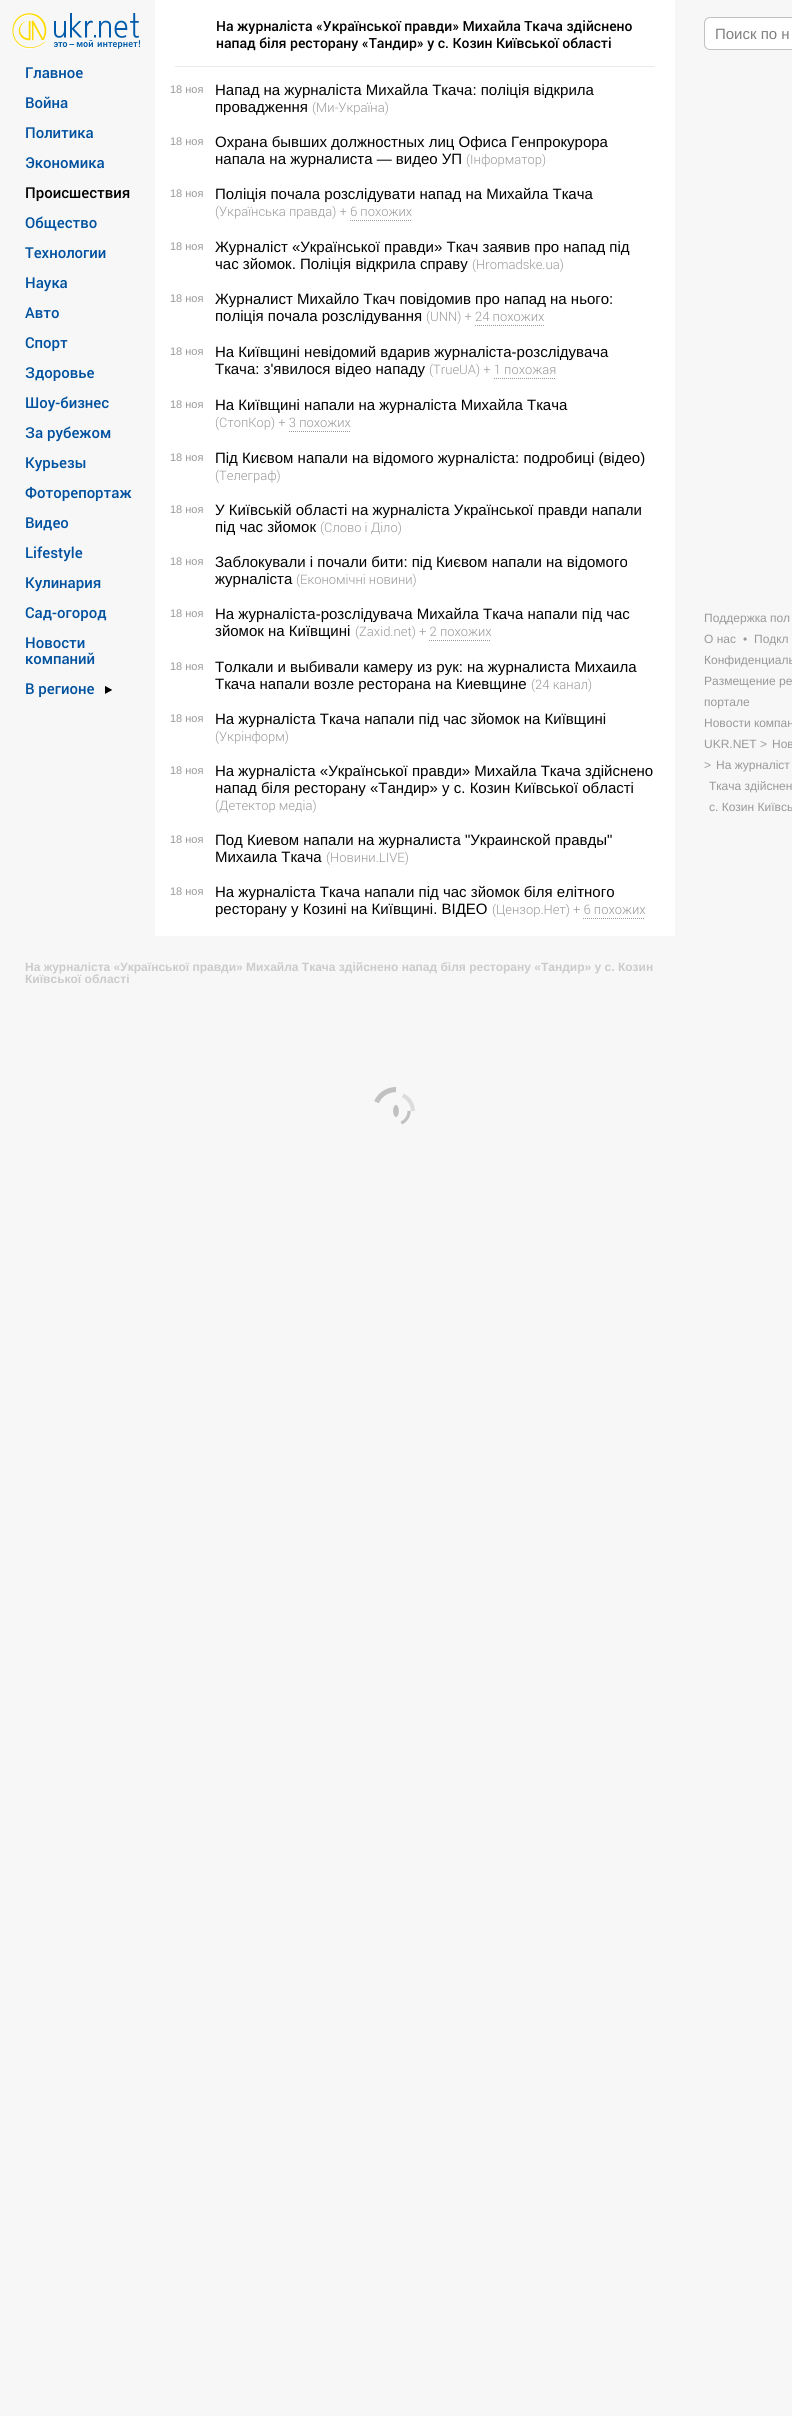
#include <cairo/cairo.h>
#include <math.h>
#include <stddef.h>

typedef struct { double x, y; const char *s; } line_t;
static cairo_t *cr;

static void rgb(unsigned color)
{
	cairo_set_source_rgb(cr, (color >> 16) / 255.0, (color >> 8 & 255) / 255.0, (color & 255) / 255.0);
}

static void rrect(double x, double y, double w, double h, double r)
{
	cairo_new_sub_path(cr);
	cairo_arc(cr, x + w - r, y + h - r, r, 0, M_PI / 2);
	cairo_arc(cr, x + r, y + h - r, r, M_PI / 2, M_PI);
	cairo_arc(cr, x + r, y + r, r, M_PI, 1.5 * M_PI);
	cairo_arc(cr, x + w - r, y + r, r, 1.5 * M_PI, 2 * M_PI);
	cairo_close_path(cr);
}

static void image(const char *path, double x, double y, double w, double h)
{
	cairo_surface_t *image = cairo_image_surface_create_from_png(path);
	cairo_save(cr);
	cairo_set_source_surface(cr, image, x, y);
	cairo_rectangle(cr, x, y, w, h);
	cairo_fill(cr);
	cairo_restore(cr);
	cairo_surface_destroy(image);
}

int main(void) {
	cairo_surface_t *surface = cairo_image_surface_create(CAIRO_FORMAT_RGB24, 792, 2416);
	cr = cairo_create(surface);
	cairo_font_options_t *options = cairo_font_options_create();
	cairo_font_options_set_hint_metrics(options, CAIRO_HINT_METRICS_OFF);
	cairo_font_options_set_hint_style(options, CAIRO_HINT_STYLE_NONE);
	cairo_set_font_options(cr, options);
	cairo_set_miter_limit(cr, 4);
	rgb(0xf7f7f7);
	cairo_paint(cr);
	image("img/1.png", 12, 13, 129, 36);
	image("img/2.png", 105, 686, 7, 8);
	rgb(0xffffff);
	cairo_rectangle(cr, 155, 0, 520, 936);
	cairo_fill(cr);
	rgb(0xe9e9e9);
	cairo_rectangle(cr, 175, 66, 480, 1);
	cairo_fill(cr);
	cairo_new_path(cr);
	cairo_move_to(cr, 350, 220.5);
	cairo_line_to(cr, 412, 220.5);
	rgb(0x999999);
	cairo_set_line_width(cr, 1);
	cairo_set_dash(cr, (double[]){1, 1}, 2, 0);
	cairo_stroke(cr);
	cairo_new_path(cr);
	cairo_move_to(cr, 475, 325.5);
	cairo_line_to(cr, 545, 325.5);
	cairo_stroke(cr);
	cairo_new_path(cr);
	cairo_move_to(cr, 494, 378.5);
	cairo_line_to(cr, 556, 378.5);
	cairo_stroke(cr);
	cairo_new_path(cr);
	cairo_move_to(cr, 289, 431.5);
	cairo_line_to(cr, 351, 431.5);
	cairo_stroke(cr);
	cairo_new_path(cr);
	cairo_move_to(cr, 429, 640.5);
	cairo_line_to(cr, 491, 640.5);
	cairo_stroke(cr);
	cairo_new_path(cr);
	cairo_move_to(cr, 583, 918.5);
	cairo_line_to(cr, 645, 918.5);
	cairo_stroke(cr);
	rgb(0xffffff);
	rrect(704.5, 17.5, 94, 32, 5.5);
	cairo_fill_preserve(cr);
	rgb(0xc1c1c1);
	cairo_set_dash(cr, NULL, 0, 0);
	cairo_stroke(cr);
	image("img/3.png", 374, 1087, 41, 38);
	cairo_select_font_face(cr, "Roboto Medium", CAIRO_FONT_SLANT_NORMAL, CAIRO_FONT_WEIGHT_NORMAL);
	cairo_set_font_size(cr, 15);
	rgb(0x00519f);
	{
		static const line_t items[] = {
			{25, 78, "Главное"},
			{25, 108, "Война"},
			{25, 138, "Политика"},
			{25, 168, "Экономика"},
		};
		for (size_t i = 0; i < sizeof items / sizeof *items; i++) {
			cairo_move_to(cr, items[i].x, items[i].y);
			cairo_show_text(cr, items[i].s);
		}
	}
	rgb(0x000000);
	cairo_move_to(cr, 25, 198);
	cairo_show_text(cr, "Происшествия");
	rgb(0x00519f);
	{
		static const line_t items[] = {
			{25, 228, "Общество"},
			{25, 258, "Технологии"},
			{25, 288, "Наука"},
			{25, 318, "Авто"},
			{25, 348, "Спорт"},
			{25, 378, "Здоровье"},
			{25, 408, "Шоу-бизнес"},
			{25, 438, "За рубежом"},
			{25, 468, "Курьезы"},
			{25, 498, "Фоторепортаж"},
			{25, 528, "Видео"},
			{25, 558, "Lifestyle"},
			{25, 588, "Кулинария"},
			{25, 618, "Сад-огород"},
			{25, 648, "Новости"},
			{25, 664, "компаний"},
			{25, 694, "В регионе"},
		};
		for (size_t i = 0; i < sizeof items / sizeof *items; i++) {
			cairo_move_to(cr, items[i].x, items[i].y);
			cairo_show_text(cr, items[i].s);
		}
	}
	cairo_set_font_size(cr, 14);
	rgb(0x000000);
	cairo_move_to(cr, 216, 31);
	cairo_show_text(cr, "На журналіста «Української правди» Михайла Ткача здійснено");
	cairo_move_to(cr, 216, 48);
	cairo_show_text(cr, "напад біля ресторану «Тандир» у с. Козин Київської області");
	cairo_select_font_face(cr, "Liberation Sans", CAIRO_FONT_SLANT_NORMAL, CAIRO_FONT_WEIGHT_NORMAL);
	cairo_set_font_size(cr, 11);
	rgb(0x999999);
	cairo_move_to(cr, 170, 93);
	cairo_show_text(cr, "18 ноя");
	cairo_set_font_size(cr, 15);
	rgb(0x000000);
	cairo_move_to(cr, 215, 95);
	cairo_show_text(cr, "Напад на журналіста Михайла Ткача: поліція відкрила");
	cairo_move_to(cr, 215, 112);
	cairo_show_text(cr, "провадження");
	cairo_select_font_face(cr, "Roboto Light", CAIRO_FONT_SLANT_NORMAL, CAIRO_FONT_WEIGHT_NORMAL);
	cairo_set_font_size(cr, 13);
	rgb(0x999999);
	cairo_move_to(cr, 312, 112);
	cairo_show_text(cr, "(Ми-Україна)");
	cairo_select_font_face(cr, "Liberation Sans", CAIRO_FONT_SLANT_NORMAL, CAIRO_FONT_WEIGHT_NORMAL);
	cairo_set_font_size(cr, 11);
	cairo_move_to(cr, 170, 145);
	cairo_show_text(cr, "18 ноя");
	cairo_set_font_size(cr, 15);
	rgb(0x000000);
	cairo_move_to(cr, 215, 147);
	cairo_show_text(cr, "Охрана бывших должностных лиц Офиса Генпрокурора");
	cairo_move_to(cr, 215, 164);
	cairo_show_text(cr, "напала на журналиста — видео УП");
	cairo_select_font_face(cr, "Roboto Light", CAIRO_FONT_SLANT_NORMAL, CAIRO_FONT_WEIGHT_NORMAL);
	cairo_set_font_size(cr, 13);
	rgb(0x999999);
	cairo_move_to(cr, 466, 164);
	cairo_show_text(cr, "(Інформатор)");
	cairo_select_font_face(cr, "Liberation Sans", CAIRO_FONT_SLANT_NORMAL, CAIRO_FONT_WEIGHT_NORMAL);
	cairo_set_font_size(cr, 11);
	cairo_move_to(cr, 170, 197);
	cairo_show_text(cr, "18 ноя");
	cairo_set_font_size(cr, 15);
	rgb(0x000000);
	cairo_move_to(cr, 215, 199);
	cairo_show_text(cr, "Поліція почала розслідувати напад на Михайла Ткача");
	cairo_select_font_face(cr, "Roboto Light", CAIRO_FONT_SLANT_NORMAL, CAIRO_FONT_WEIGHT_NORMAL);
	cairo_set_font_size(cr, 13);
	rgb(0x999999);
	cairo_move_to(cr, 215, 216);
	cairo_show_text(cr, "(Українська правда) + 6 похожих");
	cairo_select_font_face(cr, "Liberation Sans", CAIRO_FONT_SLANT_NORMAL, CAIRO_FONT_WEIGHT_NORMAL);
	cairo_set_font_size(cr, 11);
	cairo_move_to(cr, 170, 250);
	cairo_show_text(cr, "18 ноя");
	cairo_set_font_size(cr, 15);
	rgb(0x000000);
	cairo_move_to(cr, 215, 252);
	cairo_show_text(cr, "Журналіст «Української правди» Ткач заявив про напад під");
	cairo_move_to(cr, 215, 269);
	cairo_show_text(cr, "час зйомок. Поліція відкрила справу");
	cairo_select_font_face(cr, "Roboto Light", CAIRO_FONT_SLANT_NORMAL, CAIRO_FONT_WEIGHT_NORMAL);
	cairo_set_font_size(cr, 13);
	rgb(0x999999);
	cairo_move_to(cr, 472, 269);
	cairo_show_text(cr, "(Hromadske.ua)");
	cairo_select_font_face(cr, "Liberation Sans", CAIRO_FONT_SLANT_NORMAL, CAIRO_FONT_WEIGHT_NORMAL);
	cairo_set_font_size(cr, 11);
	cairo_move_to(cr, 170, 302);
	cairo_show_text(cr, "18 ноя");
	cairo_set_font_size(cr, 15);
	rgb(0x000000);
	cairo_move_to(cr, 215, 304);
	cairo_show_text(cr, "Журналист Михайло Ткач повідомив про напад на нього:");
	cairo_move_to(cr, 215, 321);
	cairo_show_text(cr, "поліція почала розслідування");
	cairo_select_font_face(cr, "Roboto Light", CAIRO_FONT_SLANT_NORMAL, CAIRO_FONT_WEIGHT_NORMAL);
	cairo_set_font_size(cr, 13);
	rgb(0x999999);
	cairo_move_to(cr, 426, 321);
	cairo_show_text(cr, "(UNN) + 24 похожих");
	cairo_select_font_face(cr, "Liberation Sans", CAIRO_FONT_SLANT_NORMAL, CAIRO_FONT_WEIGHT_NORMAL);
	cairo_set_font_size(cr, 11);
	cairo_move_to(cr, 170, 355);
	cairo_show_text(cr, "18 ноя");
	cairo_set_font_size(cr, 15);
	rgb(0x000000);
	cairo_move_to(cr, 215, 357);
	cairo_show_text(cr, "На Київщині невідомий вдарив журналіста-розслідувача");
	cairo_move_to(cr, 215, 374);
	cairo_show_text(cr, "Ткача: з'явилося відео нападу");
	cairo_select_font_face(cr, "Roboto Light", CAIRO_FONT_SLANT_NORMAL, CAIRO_FONT_WEIGHT_NORMAL);
	cairo_set_font_size(cr, 13);
	rgb(0x999999);
	cairo_move_to(cr, 429, 374);
	cairo_show_text(cr, "(TrueUA) + 1 похожая");
	cairo_select_font_face(cr, "Liberation Sans", CAIRO_FONT_SLANT_NORMAL, CAIRO_FONT_WEIGHT_NORMAL);
	cairo_set_font_size(cr, 11);
	cairo_move_to(cr, 170, 408);
	cairo_show_text(cr, "18 ноя");
	cairo_set_font_size(cr, 15);
	rgb(0x000000);
	cairo_move_to(cr, 215, 410);
	cairo_show_text(cr, "На Київщині напали на журналіста Михайла Ткача");
	cairo_select_font_face(cr, "Roboto Light", CAIRO_FONT_SLANT_NORMAL, CAIRO_FONT_WEIGHT_NORMAL);
	cairo_set_font_size(cr, 13);
	rgb(0x999999);
	cairo_move_to(cr, 215, 427);
	cairo_show_text(cr, "(СтопКор) + 3 похожих");
	cairo_select_font_face(cr, "Liberation Sans", CAIRO_FONT_SLANT_NORMAL, CAIRO_FONT_WEIGHT_NORMAL);
	cairo_set_font_size(cr, 11);
	cairo_move_to(cr, 170, 461);
	cairo_show_text(cr, "18 ноя");
	cairo_set_font_size(cr, 15);
	rgb(0x000000);
	cairo_move_to(cr, 215, 463);
	cairo_show_text(cr, "Під Києвом напали на відомого журналіста: подробиці (відео)");
	cairo_select_font_face(cr, "Roboto Light", CAIRO_FONT_SLANT_NORMAL, CAIRO_FONT_WEIGHT_NORMAL);
	cairo_set_font_size(cr, 13);
	rgb(0x999999);
	cairo_move_to(cr, 215, 480);
	cairo_show_text(cr, "(Телеграф)");
	cairo_select_font_face(cr, "Liberation Sans", CAIRO_FONT_SLANT_NORMAL, CAIRO_FONT_WEIGHT_NORMAL);
	cairo_set_font_size(cr, 11);
	cairo_move_to(cr, 170, 513);
	cairo_show_text(cr, "18 ноя");
	cairo_set_font_size(cr, 15);
	rgb(0x000000);
	cairo_move_to(cr, 215, 515);
	cairo_show_text(cr, "У Київській області на журналіста Української правди напали");
	cairo_move_to(cr, 215, 532);
	cairo_show_text(cr, "під час зйомок");
	cairo_select_font_face(cr, "Roboto Light", CAIRO_FONT_SLANT_NORMAL, CAIRO_FONT_WEIGHT_NORMAL);
	cairo_set_font_size(cr, 13);
	rgb(0x999999);
	cairo_move_to(cr, 320, 532);
	cairo_show_text(cr, "(Слово і Діло)");
	cairo_select_font_face(cr, "Liberation Sans", CAIRO_FONT_SLANT_NORMAL, CAIRO_FONT_WEIGHT_NORMAL);
	cairo_set_font_size(cr, 11);
	cairo_move_to(cr, 170, 565);
	cairo_show_text(cr, "18 ноя");
	cairo_set_font_size(cr, 15);
	rgb(0x000000);
	cairo_move_to(cr, 215, 567);
	cairo_show_text(cr, "Заблокували і почали бити: під Києвом напали на відомого");
	cairo_move_to(cr, 215, 584);
	cairo_show_text(cr, "журналіста");
	cairo_select_font_face(cr, "Roboto Light", CAIRO_FONT_SLANT_NORMAL, CAIRO_FONT_WEIGHT_NORMAL);
	cairo_set_font_size(cr, 13);
	rgb(0x999999);
	cairo_move_to(cr, 296, 584);
	cairo_show_text(cr, "(Економічні новини)");
	cairo_select_font_face(cr, "Liberation Sans", CAIRO_FONT_SLANT_NORMAL, CAIRO_FONT_WEIGHT_NORMAL);
	cairo_set_font_size(cr, 11);
	cairo_move_to(cr, 170, 617);
	cairo_show_text(cr, "18 ноя");
	cairo_set_font_size(cr, 15);
	rgb(0x000000);
	cairo_move_to(cr, 215, 619);
	cairo_show_text(cr, "На журналіста-розслідувача Михайла Ткача напали під час");
	cairo_move_to(cr, 215, 636);
	cairo_show_text(cr, "зйомок на Київщині");
	cairo_select_font_face(cr, "Roboto Light", CAIRO_FONT_SLANT_NORMAL, CAIRO_FONT_WEIGHT_NORMAL);
	cairo_set_font_size(cr, 13);
	rgb(0x999999);
	cairo_move_to(cr, 355, 636);
	cairo_show_text(cr, "(Zaxid.net) + 2 похожих");
	cairo_select_font_face(cr, "Liberation Sans", CAIRO_FONT_SLANT_NORMAL, CAIRO_FONT_WEIGHT_NORMAL);
	cairo_set_font_size(cr, 11);
	cairo_move_to(cr, 170, 670);
	cairo_show_text(cr, "18 ноя");
	cairo_set_font_size(cr, 15);
	rgb(0x000000);
	cairo_move_to(cr, 215, 672);
	cairo_show_text(cr, "Толкали и выбивали камеру из рук: на журналиста Михаила");
	cairo_move_to(cr, 215, 689);
	cairo_show_text(cr, "Ткача напали возле ресторана на Киевщине");
	cairo_select_font_face(cr, "Roboto Light", CAIRO_FONT_SLANT_NORMAL, CAIRO_FONT_WEIGHT_NORMAL);
	cairo_set_font_size(cr, 13);
	rgb(0x999999);
	cairo_move_to(cr, 531, 689);
	cairo_show_text(cr, "(24 канал)");
	cairo_select_font_face(cr, "Liberation Sans", CAIRO_FONT_SLANT_NORMAL, CAIRO_FONT_WEIGHT_NORMAL);
	cairo_set_font_size(cr, 11);
	cairo_move_to(cr, 170, 722);
	cairo_show_text(cr, "18 ноя");
	cairo_set_font_size(cr, 15);
	rgb(0x000000);
	cairo_move_to(cr, 215, 724);
	cairo_show_text(cr, "На журналіста Ткача напали під час зйомок на Київщині");
	cairo_select_font_face(cr, "Roboto Light", CAIRO_FONT_SLANT_NORMAL, CAIRO_FONT_WEIGHT_NORMAL);
	cairo_set_font_size(cr, 13);
	rgb(0x999999);
	cairo_move_to(cr, 215, 741);
	cairo_show_text(cr, "(Укрінформ)");
	cairo_select_font_face(cr, "Liberation Sans", CAIRO_FONT_SLANT_NORMAL, CAIRO_FONT_WEIGHT_NORMAL);
	cairo_set_font_size(cr, 11);
	cairo_move_to(cr, 170, 774);
	cairo_show_text(cr, "18 ноя");
	cairo_set_font_size(cr, 15);
	rgb(0x000000);
	cairo_move_to(cr, 215, 776);
	cairo_show_text(cr, "На журналіста «Української правди» Михайла Ткача здійснено");
	cairo_move_to(cr, 215, 793);
	cairo_show_text(cr, "напад біля ресторану «Тандир» у с. Козин Київської області");
	cairo_select_font_face(cr, "Roboto Light", CAIRO_FONT_SLANT_NORMAL, CAIRO_FONT_WEIGHT_NORMAL);
	cairo_set_font_size(cr, 13);
	rgb(0x999999);
	cairo_move_to(cr, 215, 810);
	cairo_show_text(cr, "(Детектор медіа)");
	cairo_select_font_face(cr, "Liberation Sans", CAIRO_FONT_SLANT_NORMAL, CAIRO_FONT_WEIGHT_NORMAL);
	cairo_set_font_size(cr, 11);
	cairo_move_to(cr, 170, 843);
	cairo_show_text(cr, "18 ноя");
	cairo_set_font_size(cr, 15);
	rgb(0x000000);
	cairo_move_to(cr, 215, 845);
	cairo_show_text(cr, "Под Киевом напали на журналиста \"Украинской правды\"");
	cairo_move_to(cr, 215, 862);
	cairo_show_text(cr, "Михаила Ткача");
	cairo_select_font_face(cr, "Roboto Light", CAIRO_FONT_SLANT_NORMAL, CAIRO_FONT_WEIGHT_NORMAL);
	cairo_set_font_size(cr, 13);
	rgb(0x999999);
	cairo_move_to(cr, 326, 862);
	cairo_show_text(cr, "(Новини.LIVE)");
	cairo_select_font_face(cr, "Liberation Sans", CAIRO_FONT_SLANT_NORMAL, CAIRO_FONT_WEIGHT_NORMAL);
	cairo_set_font_size(cr, 11);
	cairo_move_to(cr, 170, 895);
	cairo_show_text(cr, "18 ноя");
	cairo_set_font_size(cr, 15);
	rgb(0x000000);
	cairo_move_to(cr, 215, 897);
	cairo_show_text(cr, "На журналіста Ткача напали під час зйомок біля елітного");
	cairo_move_to(cr, 215, 914);
	cairo_show_text(cr, "ресторану у Козині на Київщині. ВIДЕО");
	cairo_select_font_face(cr, "Roboto Light", CAIRO_FONT_SLANT_NORMAL, CAIRO_FONT_WEIGHT_NORMAL);
	cairo_set_font_size(cr, 13);
	rgb(0x999999);
	cairo_move_to(cr, 492, 914);
	cairo_show_text(cr, "(Цензор.Нет) + 6 похожих");
	cairo_select_font_face(cr, "Liberation Sans", CAIRO_FONT_SLANT_NORMAL, CAIRO_FONT_WEIGHT_NORMAL);
	cairo_set_font_size(cr, 15);
	rgb(0x808080);
	cairo_move_to(cr, 715, 39);
	cairo_show_text(cr, "Поиск по н");
	cairo_set_font_size(cr, 12);
	rgb(0x999999);
	{
		static const line_t items[] = {
			{704, 622, "Поддержка пол"},
			{704, 643, "О нас"},
			{743, 643, "•"},
			{754, 643, "Подкл"},
			{704, 664, "Конфиденциаль"},
			{704, 685, "Размещение ре"},
			{704, 706, "портале"},
			{704, 727, "Новости компан"},
			{704, 748, "UKR.NET >"},
			{772, 748, "Нов"},
			{704, 769, ">"},
			{716, 769, "На журналіст"},
			{709, 790, "Ткача здійснен"},
			{709, 811, "с. Козин Київсь"},
		};
		for (size_t i = 0; i < sizeof items / sizeof *items; i++) {
			cairo_move_to(cr, items[i].x, items[i].y);
			cairo_show_text(cr, items[i].s);
		}
	}
	cairo_select_font_face(cr, "Liberation Sans", CAIRO_FONT_SLANT_NORMAL, CAIRO_FONT_WEIGHT_BOLD);
	rgb(0xcbcbcb);
	cairo_move_to(cr, 25, 971);
	cairo_show_text(cr, "На журналіста «Української правди» Михайла Ткача здійснено напад біля ресторану «Тандир» у с. Козин");
	cairo_move_to(cr, 25, 983);
	cairo_show_text(cr, "Київської області");
	cairo_surface_write_to_png(surface, "page.png");
	cairo_font_options_destroy(options);
	cairo_destroy(cr);
	cairo_surface_destroy(surface);
	return 0;
}
